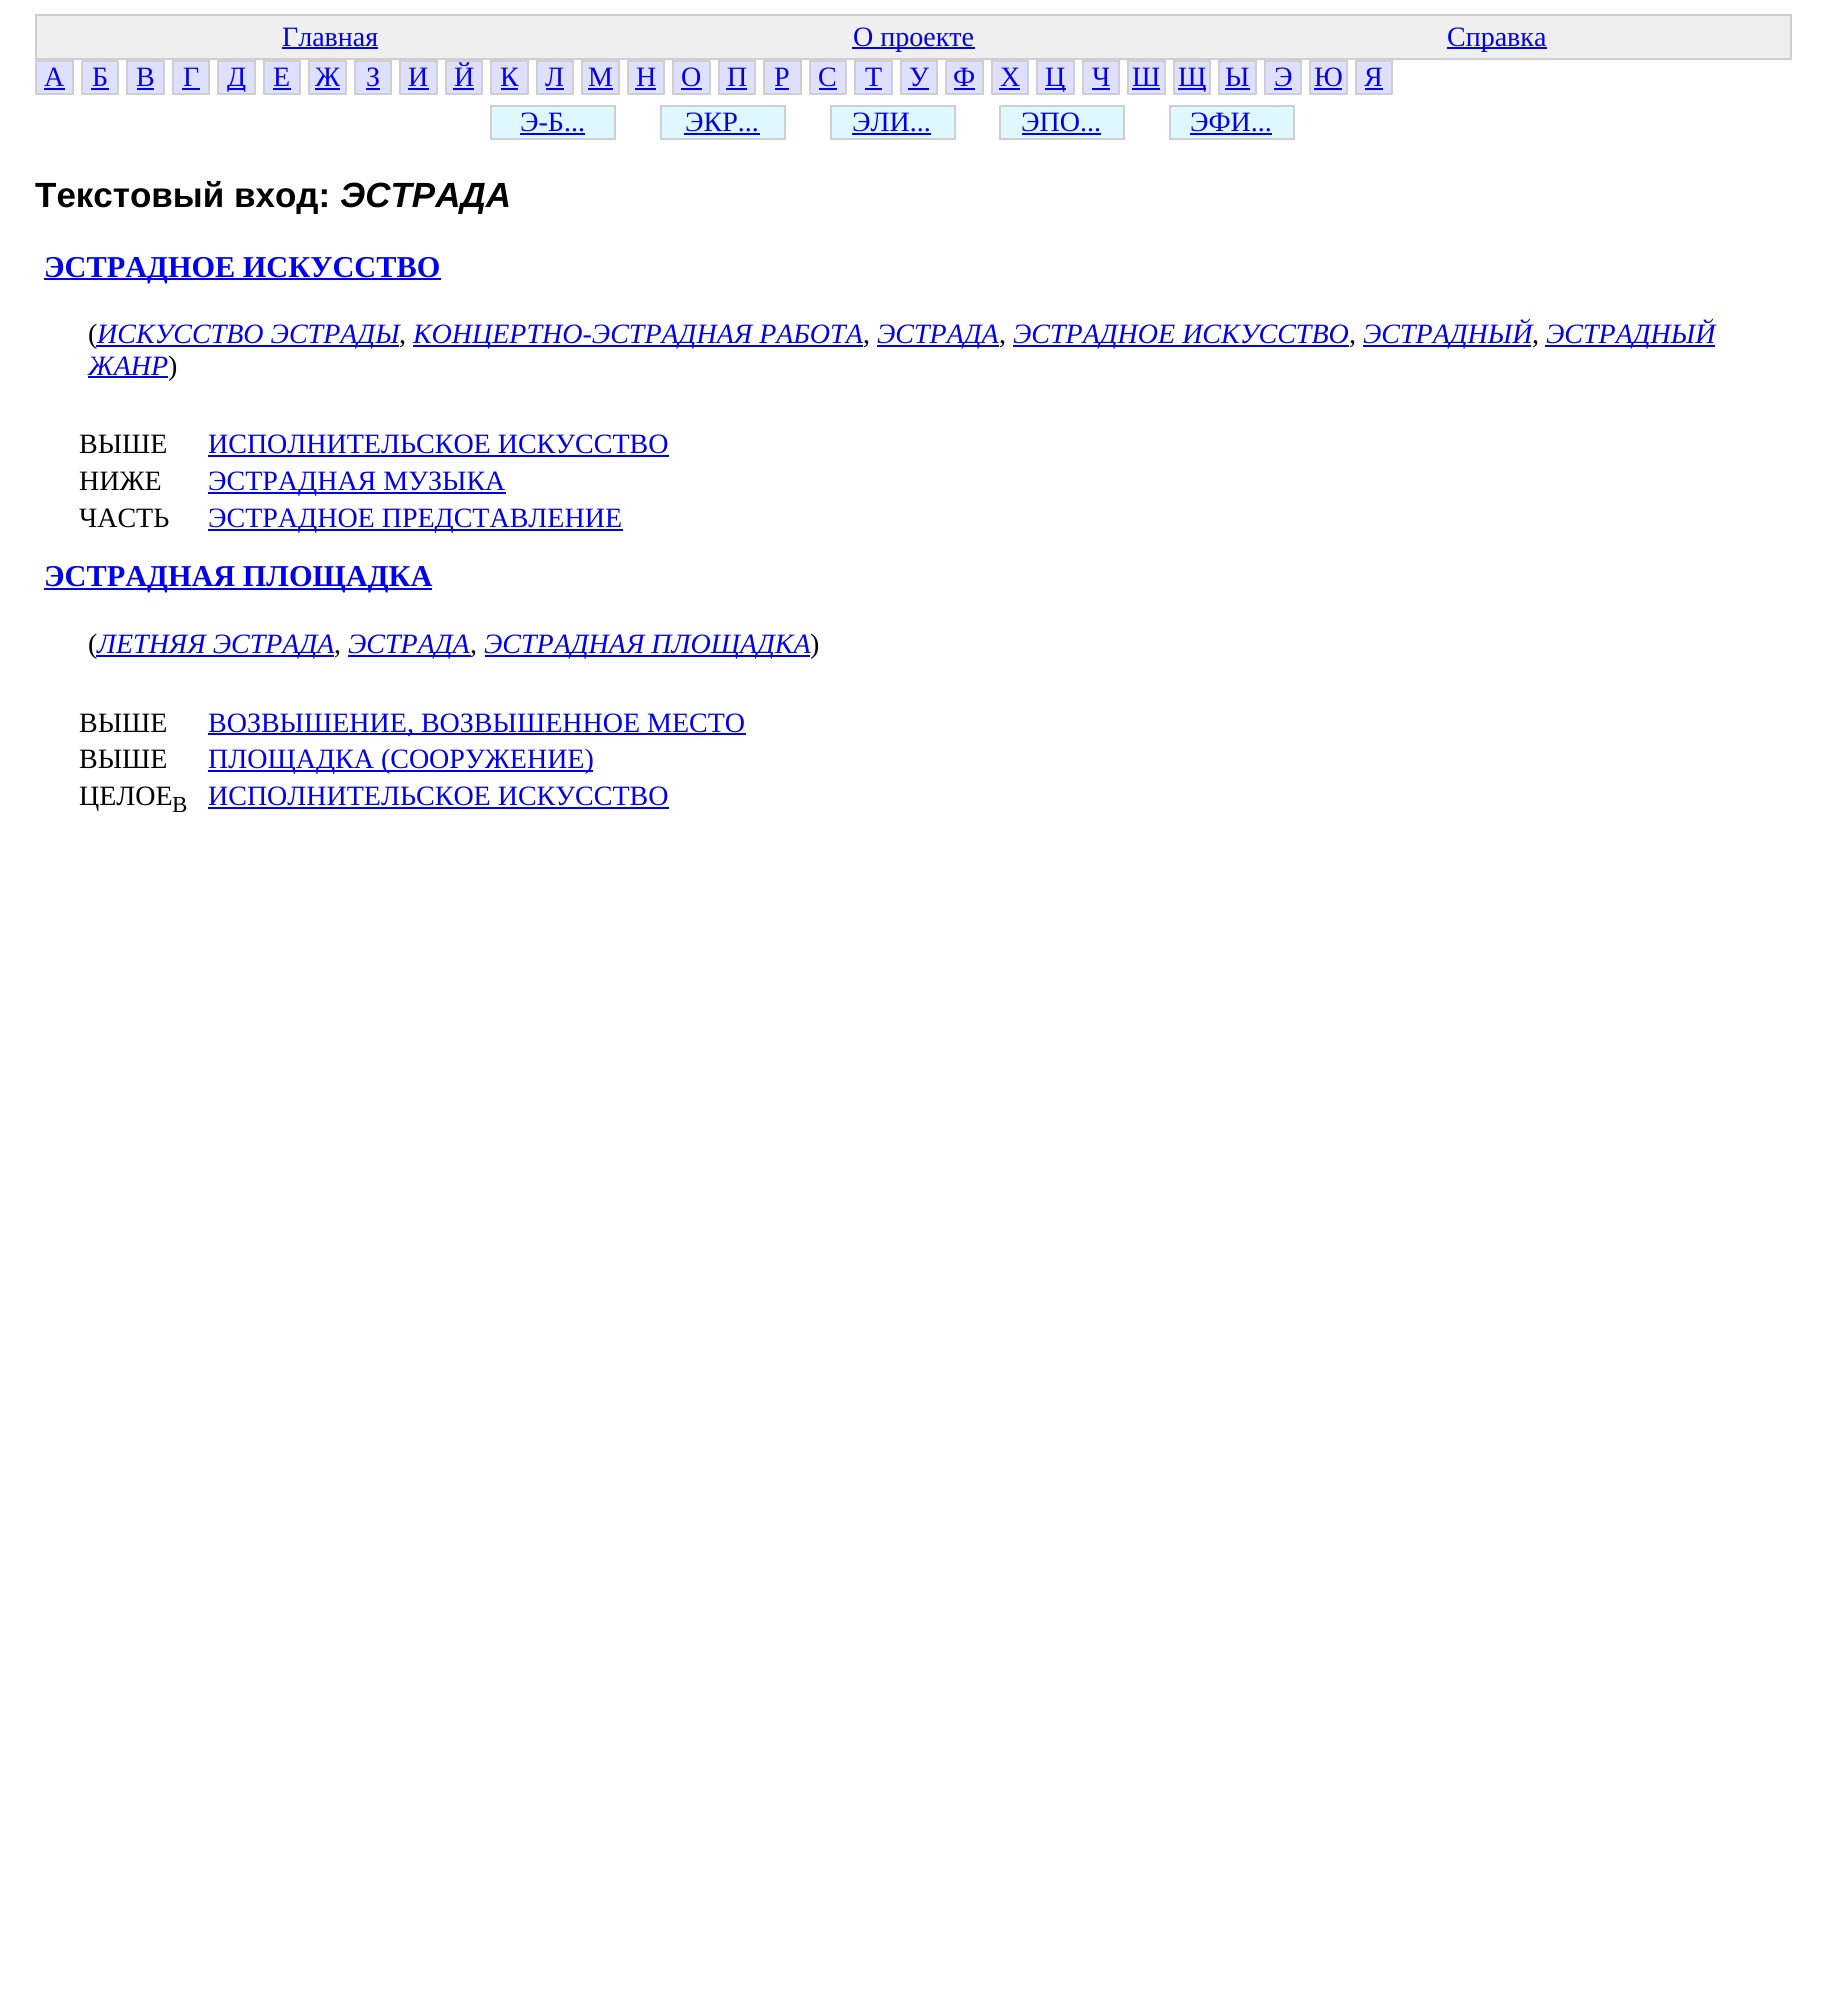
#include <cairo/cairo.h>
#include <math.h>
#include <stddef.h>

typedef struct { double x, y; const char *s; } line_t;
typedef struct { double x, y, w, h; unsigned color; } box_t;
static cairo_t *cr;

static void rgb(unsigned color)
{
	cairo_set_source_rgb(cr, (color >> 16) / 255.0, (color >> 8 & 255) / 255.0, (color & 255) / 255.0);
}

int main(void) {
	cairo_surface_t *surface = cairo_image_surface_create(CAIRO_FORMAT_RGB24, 1827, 1991);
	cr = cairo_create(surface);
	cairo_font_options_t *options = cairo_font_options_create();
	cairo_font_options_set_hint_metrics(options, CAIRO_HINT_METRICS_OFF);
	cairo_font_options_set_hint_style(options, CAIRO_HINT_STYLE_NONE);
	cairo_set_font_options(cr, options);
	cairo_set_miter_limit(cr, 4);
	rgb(0xffffff);
	cairo_paint(cr);
	rgb(0xefefef);
	cairo_rectangle(cr, 36, 15, 1755, 44);
	cairo_fill_preserve(cr);
	rgb(0xcfcfcf);
	cairo_stroke(cr);
	{
		static const box_t items[] = {
			{282, 47, 96, 2, 0x0000ee},
			{852, 47, 123, 2, 0x0000ee},
			{1447, 47, 100, 2, 0x0000ee},
		};
		for (size_t i = 0; i < sizeof items / sizeof *items; i++) {
			rgb(items[i].color);
			cairo_rectangle(cr, items[i].x, items[i].y, items[i].w, items[i].h);
			cairo_fill(cr);
		}
	}
	rgb(0xdfdfff);
	cairo_rectangle(cr, 36, 61, 37, 33);
	cairo_fill_preserve(cr);
	rgb(0xcfcfcf);
	cairo_stroke(cr);
	rgb(0x0000ee);
	cairo_rectangle(cr, 44, 88, 21, 2);
	cairo_fill(cr);
	rgb(0xdfdfff);
	cairo_rectangle(cr, 82, 61, 36, 33);
	cairo_fill_preserve(cr);
	rgb(0xcfcfcf);
	cairo_stroke(cr);
	rgb(0x0000ee);
	cairo_rectangle(cr, 91, 88, 18, 2);
	cairo_fill(cr);
	rgb(0xdfdfff);
	cairo_rectangle(cr, 127, 61, 37, 33);
	cairo_fill_preserve(cr);
	rgb(0xcfcfcf);
	cairo_stroke(cr);
	rgb(0x0000ee);
	cairo_rectangle(cr, 137, 88, 17, 2);
	cairo_fill(cr);
	rgb(0xdfdfff);
	cairo_rectangle(cr, 173, 61, 36, 33);
	cairo_fill_preserve(cr);
	rgb(0xcfcfcf);
	cairo_stroke(cr);
	rgb(0x0000ee);
	cairo_rectangle(cr, 182, 88, 18, 2);
	cairo_fill(cr);
	rgb(0xdfdfff);
	cairo_rectangle(cr, 218, 61, 37, 33);
	cairo_fill_preserve(cr);
	rgb(0xcfcfcf);
	cairo_stroke(cr);
	rgb(0x0000ee);
	cairo_rectangle(cr, 228, 88, 17, 2);
	cairo_fill(cr);
	rgb(0xdfdfff);
	cairo_rectangle(cr, 264, 61, 36, 33);
	cairo_fill_preserve(cr);
	rgb(0xcfcfcf);
	cairo_stroke(cr);
	rgb(0x0000ee);
	cairo_rectangle(cr, 273, 88, 18, 2);
	cairo_fill(cr);
	rgb(0xdfdfff);
	cairo_rectangle(cr, 309, 61, 37, 33);
	cairo_fill_preserve(cr);
	rgb(0xcfcfcf);
	cairo_stroke(cr);
	rgb(0x0000ee);
	cairo_rectangle(cr, 315, 88, 25, 2);
	cairo_fill(cr);
	rgb(0xdfdfff);
	cairo_rectangle(cr, 355, 61, 36, 33);
	cairo_fill_preserve(cr);
	rgb(0xcfcfcf);
	cairo_stroke(cr);
	rgb(0x0000ee);
	cairo_rectangle(cr, 366, 88, 14, 2);
	cairo_fill(cr);
	rgb(0xdfdfff);
	cairo_rectangle(cr, 400, 61, 37, 33);
	cairo_fill_preserve(cr);
	rgb(0xcfcfcf);
	cairo_stroke(cr);
	rgb(0x0000ee);
	cairo_rectangle(cr, 408, 88, 21, 2);
	cairo_fill(cr);
	rgb(0xdfdfff);
	cairo_rectangle(cr, 446, 61, 36, 33);
	cairo_fill_preserve(cr);
	rgb(0xcfcfcf);
	cairo_stroke(cr);
	rgb(0x0000ee);
	cairo_rectangle(cr, 453, 88, 21, 2);
	cairo_fill(cr);
	rgb(0xdfdfff);
	cairo_rectangle(cr, 491, 61, 37, 33);
	cairo_fill_preserve(cr);
	rgb(0xcfcfcf);
	cairo_stroke(cr);
	rgb(0x0000ee);
	cairo_rectangle(cr, 501, 88, 17, 2);
	cairo_fill(cr);
	rgb(0xdfdfff);
	cairo_rectangle(cr, 537, 61, 36, 33);
	cairo_fill_preserve(cr);
	rgb(0xcfcfcf);
	cairo_stroke(cr);
	rgb(0x0000ee);
	cairo_rectangle(cr, 546, 88, 18, 2);
	cairo_fill(cr);
	rgb(0xdfdfff);
	cairo_rectangle(cr, 582, 61, 37, 33);
	cairo_fill_preserve(cr);
	rgb(0xcfcfcf);
	cairo_stroke(cr);
	rgb(0x0000ee);
	cairo_rectangle(cr, 588, 88, 25, 2);
	cairo_fill(cr);
	rgb(0xdfdfff);
	cairo_rectangle(cr, 628, 61, 36, 33);
	cairo_fill_preserve(cr);
	rgb(0xcfcfcf);
	cairo_stroke(cr);
	rgb(0x0000ee);
	cairo_rectangle(cr, 635, 88, 21, 2);
	cairo_fill(cr);
	rgb(0xdfdfff);
	cairo_rectangle(cr, 673, 61, 37, 33);
	cairo_fill_preserve(cr);
	rgb(0xcfcfcf);
	cairo_stroke(cr);
	rgb(0x0000ee);
	cairo_rectangle(cr, 681, 88, 21, 2);
	cairo_fill(cr);
	rgb(0xdfdfff);
	cairo_rectangle(cr, 719, 61, 36, 33);
	cairo_fill_preserve(cr);
	rgb(0xcfcfcf);
	cairo_stroke(cr);
	rgb(0x0000ee);
	cairo_rectangle(cr, 726, 88, 21, 2);
	cairo_fill(cr);
	rgb(0xdfdfff);
	cairo_rectangle(cr, 764, 61, 37, 33);
	cairo_fill_preserve(cr);
	rgb(0xcfcfcf);
	cairo_stroke(cr);
	rgb(0x0000ee);
	cairo_rectangle(cr, 775, 88, 14, 2);
	cairo_fill(cr);
	rgb(0xdfdfff);
	cairo_rectangle(cr, 810, 61, 36, 33);
	cairo_fill_preserve(cr);
	rgb(0xcfcfcf);
	cairo_stroke(cr);
	rgb(0x0000ee);
	cairo_rectangle(cr, 819, 88, 18, 2);
	cairo_fill(cr);
	rgb(0xdfdfff);
	cairo_rectangle(cr, 855, 61, 37, 33);
	cairo_fill_preserve(cr);
	rgb(0xcfcfcf);
	cairo_stroke(cr);
	rgb(0x0000ee);
	cairo_rectangle(cr, 865, 88, 17, 2);
	cairo_fill(cr);
	rgb(0xdfdfff);
	cairo_rectangle(cr, 901, 61, 36, 33);
	cairo_fill_preserve(cr);
	rgb(0xcfcfcf);
	cairo_stroke(cr);
	rgb(0x0000ee);
	cairo_rectangle(cr, 908, 88, 21, 2);
	cairo_fill(cr);
	rgb(0xdfdfff);
	cairo_rectangle(cr, 946, 61, 37, 33);
	cairo_fill_preserve(cr);
	rgb(0xcfcfcf);
	cairo_stroke(cr);
	rgb(0x0000ee);
	cairo_rectangle(cr, 954, 88, 21, 2);
	cairo_fill(cr);
	rgb(0xdfdfff);
	cairo_rectangle(cr, 992, 61, 36, 33);
	cairo_fill_preserve(cr);
	rgb(0xcfcfcf);
	cairo_stroke(cr);
	rgb(0x0000ee);
	cairo_rectangle(cr, 999, 88, 21, 2);
	cairo_fill(cr);
	rgb(0xdfdfff);
	cairo_rectangle(cr, 1037, 61, 37, 33);
	cairo_fill_preserve(cr);
	rgb(0xcfcfcf);
	cairo_stroke(cr);
	rgb(0x0000ee);
	cairo_rectangle(cr, 1045, 88, 21, 2);
	cairo_fill(cr);
	rgb(0xdfdfff);
	cairo_rectangle(cr, 1083, 61, 36, 33);
	cairo_fill_preserve(cr);
	rgb(0xcfcfcf);
	cairo_stroke(cr);
	rgb(0x0000ee);
	cairo_rectangle(cr, 1092, 88, 18, 2);
	cairo_fill(cr);
	rgb(0xdfdfff);
	cairo_rectangle(cr, 1128, 61, 37, 33);
	cairo_fill_preserve(cr);
	rgb(0xcfcfcf);
	cairo_stroke(cr);
	rgb(0x0000ee);
	cairo_rectangle(cr, 1132, 88, 28, 2);
	cairo_fill(cr);
	rgb(0xdfdfff);
	cairo_rectangle(cr, 1174, 61, 36, 33);
	cairo_fill_preserve(cr);
	rgb(0xcfcfcf);
	cairo_stroke(cr);
	rgb(0x0000ee);
	cairo_rectangle(cr, 1178, 88, 28, 2);
	cairo_fill(cr);
	rgb(0xdfdfff);
	cairo_rectangle(cr, 1219, 61, 37, 33);
	cairo_fill_preserve(cr);
	rgb(0xcfcfcf);
	cairo_stroke(cr);
	rgb(0x0000ee);
	cairo_rectangle(cr, 1225, 88, 25, 2);
	cairo_fill(cr);
	rgb(0xdfdfff);
	cairo_rectangle(cr, 1265, 61, 36, 33);
	cairo_fill_preserve(cr);
	rgb(0xcfcfcf);
	cairo_stroke(cr);
	rgb(0x0000ee);
	cairo_rectangle(cr, 1274, 88, 18, 2);
	cairo_fill(cr);
	rgb(0xdfdfff);
	cairo_rectangle(cr, 1310, 61, 37, 33);
	cairo_fill_preserve(cr);
	rgb(0xcfcfcf);
	cairo_stroke(cr);
	rgb(0x0000ee);
	cairo_rectangle(cr, 1314, 88, 28, 2);
	cairo_fill(cr);
	rgb(0xdfdfff);
	cairo_rectangle(cr, 1356, 61, 36, 33);
	cairo_fill_preserve(cr);
	rgb(0xcfcfcf);
	cairo_stroke(cr);
	rgb(0x0000ee);
	cairo_rectangle(cr, 1365, 88, 18, 2);
	cairo_fill(cr);
	rgb(0xdff7ff);
	cairo_rectangle(cr, 491, 106, 124, 33);
	cairo_fill_preserve(cr);
	rgb(0xcfcfcf);
	cairo_stroke(cr);
	rgb(0x0000ee);
	cairo_rectangle(cr, 520, 133, 65, 2);
	cairo_fill(cr);
	rgb(0xdff7ff);
	cairo_rectangle(cr, 661, 106, 124, 33);
	cairo_fill_preserve(cr);
	rgb(0xcfcfcf);
	cairo_stroke(cr);
	rgb(0x0000ee);
	cairo_rectangle(cr, 684, 133, 76, 2);
	cairo_fill(cr);
	rgb(0xdff7ff);
	cairo_rectangle(cr, 831, 106, 124, 33);
	cairo_fill_preserve(cr);
	rgb(0xcfcfcf);
	cairo_stroke(cr);
	rgb(0x0000ee);
	cairo_rectangle(cr, 852, 133, 79, 2);
	cairo_fill(cr);
	rgb(0xdff7ff);
	cairo_rectangle(cr, 1000, 106, 124, 33);
	cairo_fill_preserve(cr);
	rgb(0xcfcfcf);
	cairo_stroke(cr);
	rgb(0x0000ee);
	cairo_rectangle(cr, 1022, 133, 79, 2);
	cairo_fill(cr);
	rgb(0xdff7ff);
	cairo_rectangle(cr, 1170, 106, 124, 33);
	cairo_fill_preserve(cr);
	rgb(0xcfcfcf);
	cairo_stroke(cr);
	{
		static const box_t items[] = {
			{1190, 133, 82, 2, 0x0000ee},
			{44, 278, 397, 2, 0x0000ee},
			{96, 345, 303, 2, 0x0000ee},
			{413, 345, 450, 2, 0x0000ee},
			{877, 345, 122, 2, 0x0000ee},
			{1013, 345, 336, 2, 0x0000ee},
			{1363, 345, 168, 2, 0x0000ee},
			{1545, 345, 170, 2, 0x0000ee},
			{88, 376, 80, 2, 0x0000ee},
			{208, 455, 461, 2, 0x0000ee},
			{208, 492, 298, 2, 0x0000ee},
			{208, 529, 415, 2, 0x0000ee},
			{44, 588, 388, 2, 0x0000ee},
			{96, 655, 238, 2, 0x0000ee},
			{348, 655, 123, 2, 0x0000ee},
			{485, 655, 325, 2, 0x0000ee},
			{208, 733, 538, 2, 0x0000ee},
			{208, 770, 385, 2, 0x0000ee},
			{208, 807, 461, 2, 0x0000ee},
		};
		for (size_t i = 0; i < sizeof items / sizeof *items; i++) {
			rgb(items[i].color);
			cairo_rectangle(cr, items[i].x, items[i].y, items[i].w, items[i].h);
			cairo_fill(cr);
		}
	}
	cairo_select_font_face(cr, "Liberation Serif", CAIRO_FONT_SLANT_NORMAL, CAIRO_FONT_WEIGHT_NORMAL);
	cairo_set_font_size(cr, 28);
	{
		static const line_t items[] = {
			{282, 46, "Главная"},
			{853, 46, "О проекте"},
			{1447, 46, "Справка"},
			{44, 86, "А"},
			{92, 86, "Б"},
			{136, 86, "В"},
			{183, 86, "Г"},
			{227, 86, "Д"},
			{273, 86, "Е"},
			{315, 86, "Ж"},
			{366, 86, "З"},
			{408, 86, "И"},
			{454, 86, "Й"},
			{500, 86, "К"},
			{545, 86, "Л"},
			{588, 86, "М"},
			{636, 86, "Н"},
			{681, 86, "О"},
			{727, 86, "П"},
			{774, 86, "Р"},
			{818, 86, "С"},
			{865, 86, "Т"},
			{909, 86, "У"},
			{953, 86, "Ф"},
			{1000, 86, "Х"},
			{1045, 86, "Ц"},
			{1092, 86, "Ч"},
			{1132, 86, "Ш"},
			{1178, 86, "Щ"},
			{1225, 86, "Ы"},
			{1274, 86, "Э"},
			{1314, 86, "Ю"},
			{1364, 86, "Я"},
			{520, 131, "Э-Б..."},
			{685, 131, "ЭКР..."},
			{852, 131, "ЭЛИ..."},
			{1021, 131, "ЭПО..."},
			{1190, 131, "ЭФИ..."},
		};
		for (size_t i = 0; i < sizeof items / sizeof *items; i++) {
			cairo_move_to(cr, items[i].x, items[i].y);
			cairo_show_text(cr, items[i].s);
		}
	}
	cairo_select_font_face(cr, "Liberation Sans", CAIRO_FONT_SLANT_NORMAL, CAIRO_FONT_WEIGHT_BOLD);
	cairo_set_font_size(cr, 35);
	rgb(0x000000);
	cairo_move_to(cr, 35, 207);
	cairo_show_text(cr, "Текстовый вход:");
	cairo_select_font_face(cr, "Liberation Sans", CAIRO_FONT_SLANT_ITALIC, CAIRO_FONT_WEIGHT_BOLD);
	cairo_move_to(cr, 340, 207);
	cairo_show_text(cr, "ЭСТРАДА");
	cairo_select_font_face(cr, "Liberation Serif", CAIRO_FONT_SLANT_NORMAL, CAIRO_FONT_WEIGHT_BOLD);
	cairo_set_font_size(cr, 30.3);
	rgb(0x0000ee);
	cairo_move_to(cr, 44, 277);
	cairo_show_text(cr, "ЭСТРАДНОЕ ИСКУССТВО");
	cairo_select_font_face(cr, "Liberation Serif", CAIRO_FONT_SLANT_NORMAL, CAIRO_FONT_WEIGHT_NORMAL);
	cairo_set_font_size(cr, 28);
	rgb(0x000000);
	cairo_move_to(cr, 88, 343);
	cairo_show_text(cr, "(");
	cairo_select_font_face(cr, "Liberation Serif", CAIRO_FONT_SLANT_ITALIC, CAIRO_FONT_WEIGHT_NORMAL);
	rgb(0x0000ee);
	cairo_move_to(cr, 97, 343);
	cairo_show_text(cr, "ИСКУССТВО ЭСТРАДЫ");
	cairo_select_font_face(cr, "Liberation Serif", CAIRO_FONT_SLANT_NORMAL, CAIRO_FONT_WEIGHT_NORMAL);
	rgb(0x000000);
	cairo_move_to(cr, 399, 343);
	cairo_show_text(cr, ",");
	cairo_select_font_face(cr, "Liberation Serif", CAIRO_FONT_SLANT_ITALIC, CAIRO_FONT_WEIGHT_NORMAL);
	rgb(0x0000ee);
	cairo_move_to(cr, 413, 343);
	cairo_show_text(cr, "КОНЦЕРТНО-ЭСТРАДНАЯ РАБОТА");
	cairo_select_font_face(cr, "Liberation Serif", CAIRO_FONT_SLANT_NORMAL, CAIRO_FONT_WEIGHT_NORMAL);
	rgb(0x000000);
	cairo_move_to(cr, 863, 343);
	cairo_show_text(cr, ",");
	cairo_select_font_face(cr, "Liberation Serif", CAIRO_FONT_SLANT_ITALIC, CAIRO_FONT_WEIGHT_NORMAL);
	rgb(0x0000ee);
	cairo_move_to(cr, 877, 343);
	cairo_show_text(cr, "ЭСТРАДА");
	cairo_select_font_face(cr, "Liberation Serif", CAIRO_FONT_SLANT_NORMAL, CAIRO_FONT_WEIGHT_NORMAL);
	rgb(0x000000);
	cairo_move_to(cr, 999, 343);
	cairo_show_text(cr, ",");
	cairo_select_font_face(cr, "Liberation Serif", CAIRO_FONT_SLANT_ITALIC, CAIRO_FONT_WEIGHT_NORMAL);
	rgb(0x0000ee);
	cairo_move_to(cr, 1013, 343);
	cairo_show_text(cr, "ЭСТРАДНОЕ ИСКУССТВО");
	cairo_select_font_face(cr, "Liberation Serif", CAIRO_FONT_SLANT_NORMAL, CAIRO_FONT_WEIGHT_NORMAL);
	rgb(0x000000);
	cairo_move_to(cr, 1349, 343);
	cairo_show_text(cr, ",");
	cairo_select_font_face(cr, "Liberation Serif", CAIRO_FONT_SLANT_ITALIC, CAIRO_FONT_WEIGHT_NORMAL);
	rgb(0x0000ee);
	cairo_move_to(cr, 1363, 343);
	cairo_show_text(cr, "ЭСТРАДНЫЙ");
	cairo_select_font_face(cr, "Liberation Serif", CAIRO_FONT_SLANT_NORMAL, CAIRO_FONT_WEIGHT_NORMAL);
	rgb(0x000000);
	cairo_move_to(cr, 1532, 343);
	cairo_show_text(cr, ",");
	cairo_select_font_face(cr, "Liberation Serif", CAIRO_FONT_SLANT_ITALIC, CAIRO_FONT_WEIGHT_NORMAL);
	rgb(0x0000ee);
	cairo_move_to(cr, 1546, 343);
	cairo_show_text(cr, "ЭСТРАДНЫЙ");
	cairo_move_to(cr, 88, 375);
	cairo_show_text(cr, "ЖАНР");
	cairo_select_font_face(cr, "Liberation Serif", CAIRO_FONT_SLANT_NORMAL, CAIRO_FONT_WEIGHT_NORMAL);
	rgb(0x000000);
	cairo_move_to(cr, 168, 375);
	cairo_show_text(cr, ")");
	cairo_move_to(cr, 79, 453);
	cairo_show_text(cr, "ВЫШЕ");
	rgb(0x0000ee);
	cairo_move_to(cr, 208, 453);
	cairo_show_text(cr, "ИСПОЛНИТЕЛЬСКОЕ ИСКУССТВО");
	rgb(0x000000);
	cairo_move_to(cr, 79, 490);
	cairo_show_text(cr, "НИЖЕ");
	rgb(0x0000ee);
	cairo_move_to(cr, 208, 490);
	cairo_show_text(cr, "ЭСТРАДНАЯ МУЗЫКА");
	rgb(0x000000);
	cairo_move_to(cr, 79, 527);
	cairo_show_text(cr, "ЧАСТЬ");
	rgb(0x0000ee);
	cairo_move_to(cr, 208, 527);
	cairo_show_text(cr, "ЭСТРАДНОЕ ПРЕДСТАВЛЕНИЕ");
	cairo_select_font_face(cr, "Liberation Serif", CAIRO_FONT_SLANT_NORMAL, CAIRO_FONT_WEIGHT_BOLD);
	cairo_set_font_size(cr, 30.3);
	cairo_move_to(cr, 44, 586);
	cairo_show_text(cr, "ЭСТРАДНАЯ ПЛОЩАДКА");
	cairo_select_font_face(cr, "Liberation Serif", CAIRO_FONT_SLANT_NORMAL, CAIRO_FONT_WEIGHT_NORMAL);
	cairo_set_font_size(cr, 28);
	rgb(0x000000);
	cairo_move_to(cr, 88, 653);
	cairo_show_text(cr, "(");
	cairo_select_font_face(cr, "Liberation Serif", CAIRO_FONT_SLANT_ITALIC, CAIRO_FONT_WEIGHT_NORMAL);
	rgb(0x0000ee);
	cairo_move_to(cr, 97, 653);
	cairo_show_text(cr, "ЛЕТНЯЯ ЭСТРАДА");
	cairo_select_font_face(cr, "Liberation Serif", CAIRO_FONT_SLANT_NORMAL, CAIRO_FONT_WEIGHT_NORMAL);
	rgb(0x000000);
	cairo_move_to(cr, 334, 653);
	cairo_show_text(cr, ",");
	cairo_select_font_face(cr, "Liberation Serif", CAIRO_FONT_SLANT_ITALIC, CAIRO_FONT_WEIGHT_NORMAL);
	rgb(0x0000ee);
	cairo_move_to(cr, 348, 653);
	cairo_show_text(cr, "ЭСТРАДА");
	cairo_select_font_face(cr, "Liberation Serif", CAIRO_FONT_SLANT_NORMAL, CAIRO_FONT_WEIGHT_NORMAL);
	rgb(0x000000);
	cairo_move_to(cr, 470, 653);
	cairo_show_text(cr, ",");
	cairo_select_font_face(cr, "Liberation Serif", CAIRO_FONT_SLANT_ITALIC, CAIRO_FONT_WEIGHT_NORMAL);
	rgb(0x0000ee);
	cairo_move_to(cr, 484, 653);
	cairo_show_text(cr, "ЭСТРАДНАЯ ПЛОЩАДКА");
	cairo_select_font_face(cr, "Liberation Serif", CAIRO_FONT_SLANT_NORMAL, CAIRO_FONT_WEIGHT_NORMAL);
	rgb(0x000000);
	cairo_move_to(cr, 810, 653);
	cairo_show_text(cr, ")");
	cairo_move_to(cr, 79, 732);
	cairo_show_text(cr, "ВЫШЕ");
	rgb(0x0000ee);
	cairo_move_to(cr, 208, 732);
	cairo_show_text(cr, "ВОЗВЫШЕНИЕ, ВОЗВЫШЕННОЕ МЕСТО");
	rgb(0x000000);
	cairo_move_to(cr, 79, 768);
	cairo_show_text(cr, "ВЫШЕ");
	rgb(0x0000ee);
	cairo_move_to(cr, 208, 768);
	cairo_show_text(cr, "ПЛОЩАДКА (СООРУЖЕНИЕ)");
	rgb(0x000000);
	cairo_move_to(cr, 79, 805);
	cairo_show_text(cr, "ЦЕЛОЕ");
	cairo_set_font_size(cr, 23);
	cairo_move_to(cr, 172, 812);
	cairo_show_text(cr, "В");
	cairo_set_font_size(cr, 28);
	rgb(0x0000ee);
	cairo_move_to(cr, 208, 805);
	cairo_show_text(cr, "ИСПОЛНИТЕЛЬСКОЕ ИСКУССТВО");
	cairo_surface_write_to_png(surface, "page.png");
	cairo_font_options_destroy(options);
	cairo_destroy(cr);
	cairo_surface_destroy(surface);
	return 0;
}
